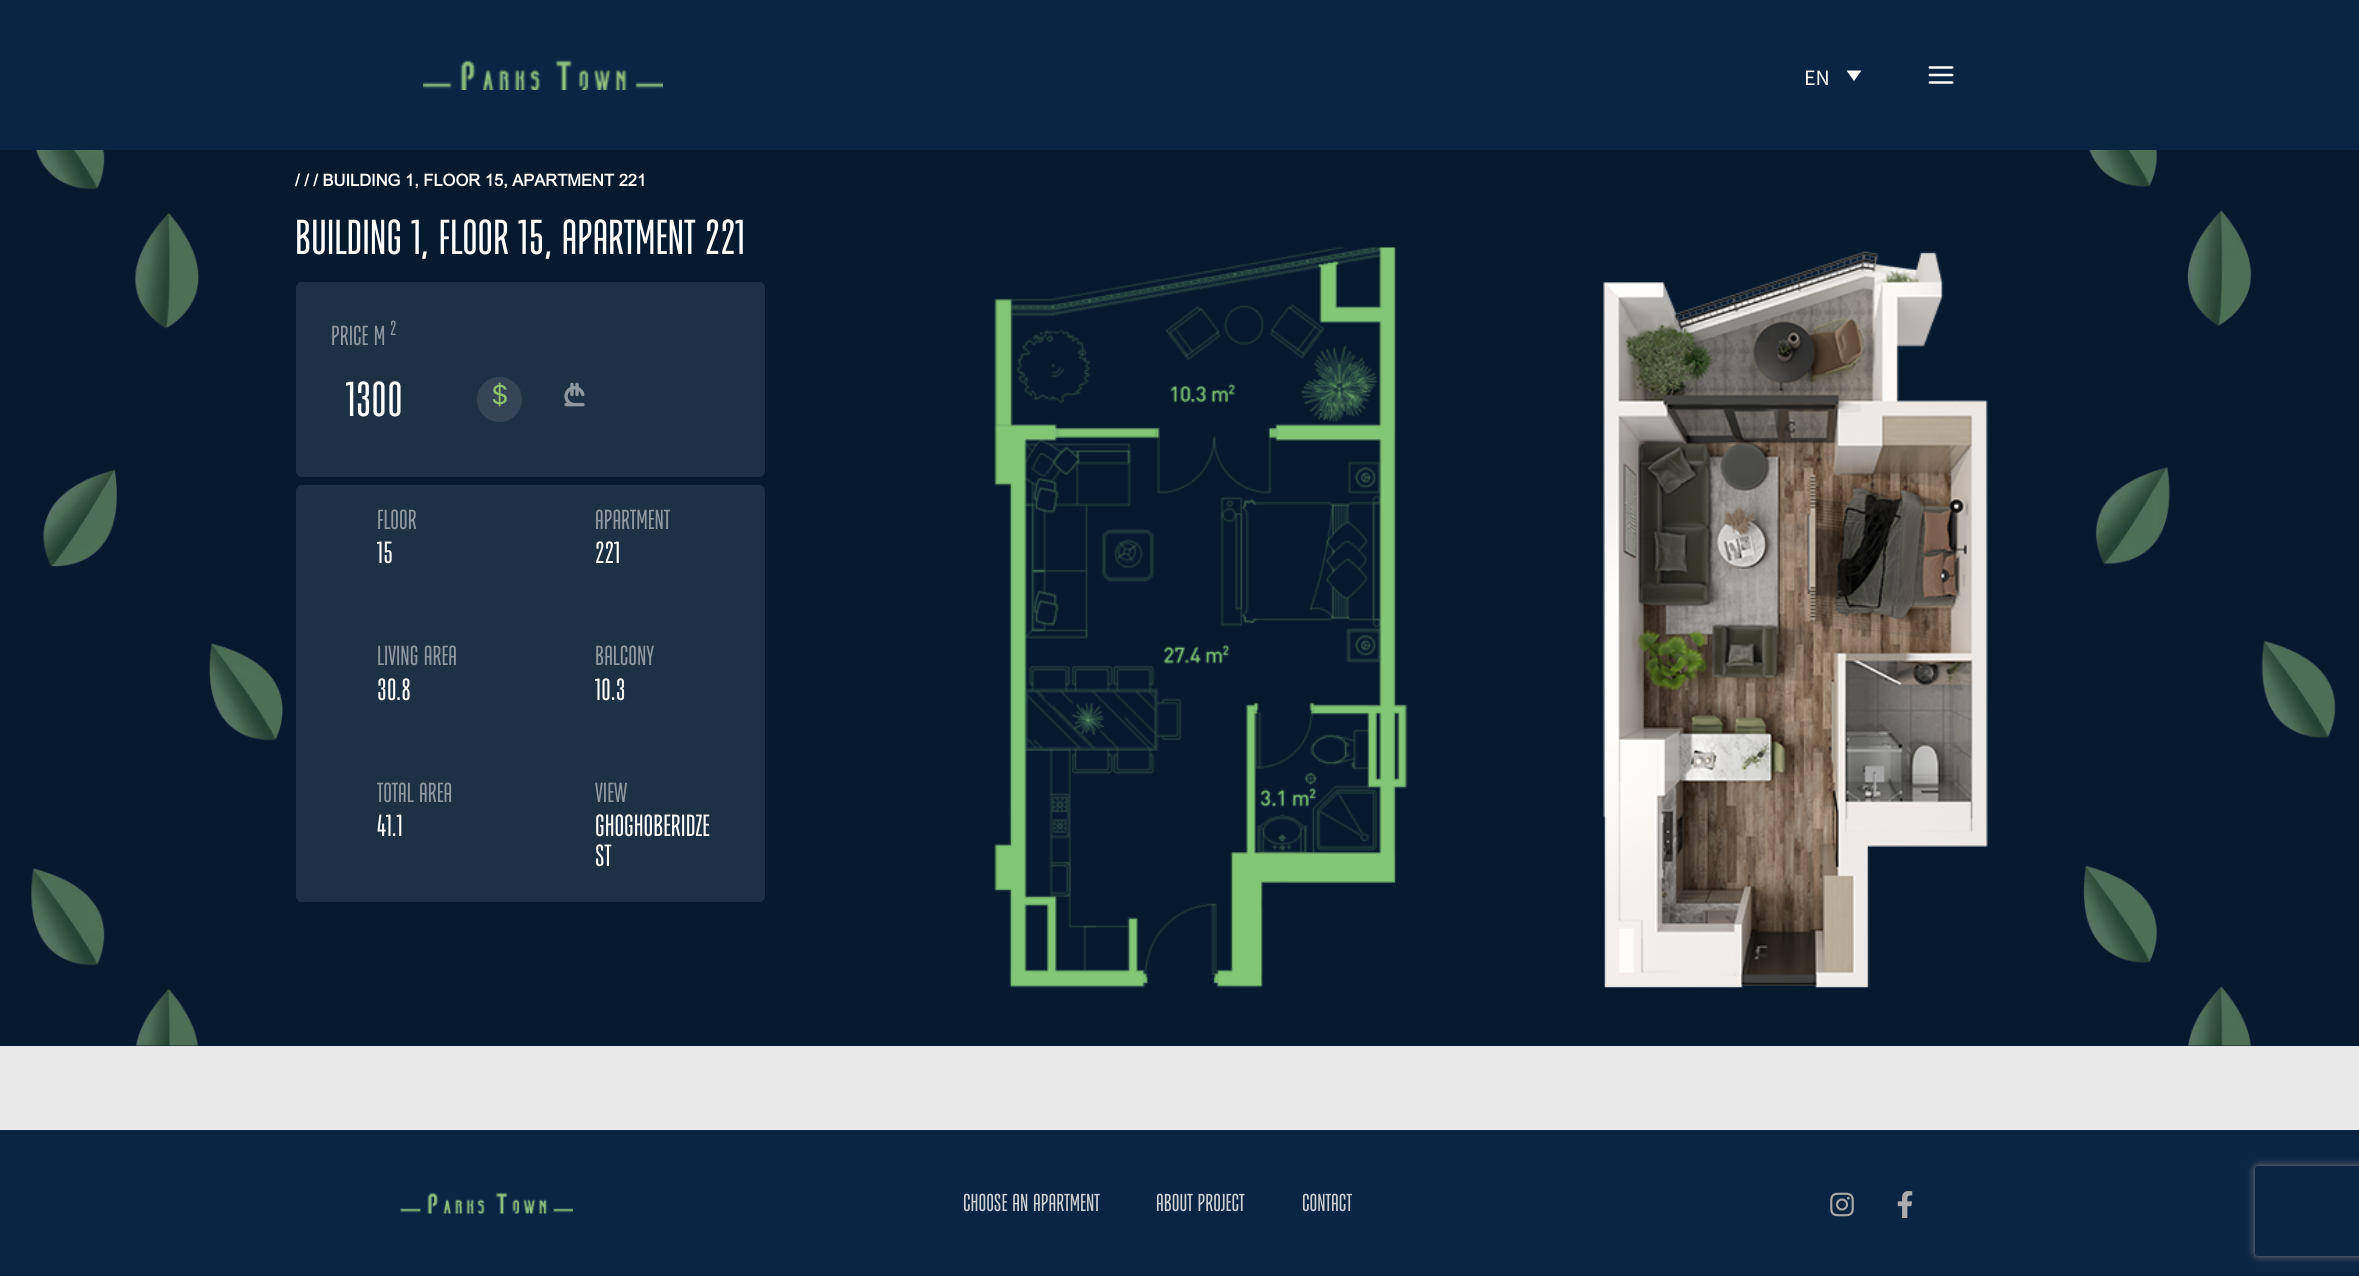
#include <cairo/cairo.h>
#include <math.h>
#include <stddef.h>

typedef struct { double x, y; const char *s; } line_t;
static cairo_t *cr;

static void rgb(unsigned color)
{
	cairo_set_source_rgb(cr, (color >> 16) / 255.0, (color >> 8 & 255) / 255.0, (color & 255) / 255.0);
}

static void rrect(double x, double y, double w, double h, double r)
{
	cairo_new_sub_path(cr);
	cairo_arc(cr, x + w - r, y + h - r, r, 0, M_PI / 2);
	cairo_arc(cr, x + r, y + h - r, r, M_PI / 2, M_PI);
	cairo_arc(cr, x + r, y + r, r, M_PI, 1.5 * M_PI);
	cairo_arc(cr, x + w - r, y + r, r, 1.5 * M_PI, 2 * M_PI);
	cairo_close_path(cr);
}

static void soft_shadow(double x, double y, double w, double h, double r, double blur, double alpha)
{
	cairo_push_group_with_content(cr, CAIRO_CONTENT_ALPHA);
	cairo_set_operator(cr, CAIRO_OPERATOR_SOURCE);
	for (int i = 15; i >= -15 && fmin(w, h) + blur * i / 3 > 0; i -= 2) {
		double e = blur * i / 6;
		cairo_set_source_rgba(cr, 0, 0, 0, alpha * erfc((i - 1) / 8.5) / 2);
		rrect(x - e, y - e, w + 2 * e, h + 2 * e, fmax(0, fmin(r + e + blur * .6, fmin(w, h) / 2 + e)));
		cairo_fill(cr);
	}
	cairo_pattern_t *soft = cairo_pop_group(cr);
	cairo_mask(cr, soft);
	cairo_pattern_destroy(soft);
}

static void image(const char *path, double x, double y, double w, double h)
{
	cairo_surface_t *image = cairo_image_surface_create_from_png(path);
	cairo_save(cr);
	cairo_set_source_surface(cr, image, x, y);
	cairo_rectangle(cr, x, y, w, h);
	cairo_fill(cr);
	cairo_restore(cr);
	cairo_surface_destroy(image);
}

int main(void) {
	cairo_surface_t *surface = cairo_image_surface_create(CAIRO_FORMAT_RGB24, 2359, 1276);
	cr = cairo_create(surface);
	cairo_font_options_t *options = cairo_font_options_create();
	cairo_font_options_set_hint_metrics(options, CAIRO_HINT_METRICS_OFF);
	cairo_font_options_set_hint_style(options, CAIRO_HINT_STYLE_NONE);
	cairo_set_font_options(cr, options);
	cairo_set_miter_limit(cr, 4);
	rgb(0xe9e9e9);
	cairo_paint(cr);
	rgb(0x092543);
	cairo_rectangle(cr, 0, 0, 2359, 150);
	cairo_fill(cr);
	image("img/1.png", 423, 60, 240, 30);
	rgb(0xffffff);
	cairo_new_path(cr);
	cairo_move_to(cr, 1846.5, 70.5);
	cairo_line_to(cr, 1861.5, 70.5);
	cairo_line_to(cr, 1854, 81);
	cairo_close_path(cr);
	cairo_fill(cr);
	image("img/2.png", 1928, 66, 26, 18);
	rgb(0x061a2f);
	cairo_rectangle(cr, 0, 150, 2359, 896);
	cairo_fill(cr);
	image("img/3.png", 31, 150, 2305, 896);
	rgb(0x1e3043);
	rrect(296, 282, 469, 195, 6);
	cairo_fill(cr);
	rgb(0x354556);
	cairo_arc(cr, 499.5, 399.5, 22.5, 0, 2 * M_PI);
	cairo_fill(cr);
	image("img/4.png", 492, 382, 15, 25);
	image("img/5.png", 564, 382, 21, 25);
	rgb(0x1e3043);
	rrect(296, 485, 469, 417, 6);
	cairo_fill(cr);
	image("img/6.png", 994, 247, 414, 741);
	image("img/7.png", 1603, 251, 385, 737);
	rgb(0x092543);
	cairo_rectangle(cr, 0, 1130, 2359, 146);
	cairo_fill(cr);
	image("img/8.png", 400, 1192, 173, 22);
	image("img/9.png", 1830, 1192, 24, 25);
	image("img/10.png", 1897, 1191, 16, 27);
	cairo_save(cr);
	cairo_set_fill_rule(cr, CAIRO_FILL_RULE_EVEN_ODD);
	cairo_new_path(cr);
	cairo_move_to(cr, 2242, 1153);
	cairo_line_to(cr, 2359, 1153);
	cairo_line_to(cr, 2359, 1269);
	cairo_line_to(cr, 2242, 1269);
	cairo_close_path(cr);
	cairo_move_to(cr, 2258, 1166);
	cairo_line_to(cr, 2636, 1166);
	cairo_curve_to(cr, 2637.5, 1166, 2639, 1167.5, 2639, 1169);
	cairo_line_to(cr, 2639, 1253);
	cairo_curve_to(cr, 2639, 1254.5, 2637.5, 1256, 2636, 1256);
	cairo_line_to(cr, 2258, 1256);
	cairo_curve_to(cr, 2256.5, 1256, 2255, 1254.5, 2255, 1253);
	cairo_line_to(cr, 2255, 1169);
	cairo_curve_to(cr, 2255, 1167.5, 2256.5, 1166, 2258, 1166);
	cairo_close_path(cr);
	cairo_clip(cr);
	rgb(0x808080);
	soft_shadow(2255, 1166, 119, 90, 3, 4, 1);
	cairo_restore(cr);
	cairo_select_font_face(cr, "Source Sans Pro", CAIRO_FONT_SLANT_NORMAL, CAIRO_FONT_WEIGHT_NORMAL);
	cairo_set_font_size(cr, 22);
	rgb(0xffffff);
	cairo_move_to(cr, 1804, 85);
	cairo_show_text(cr, "EN");
	cairo_select_font_face(cr, "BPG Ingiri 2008", CAIRO_FONT_SLANT_NORMAL, CAIRO_FONT_WEIGHT_BOLD);
	cairo_set_font_size(cr, 16.5);
	cairo_move_to(cr, 295, 186);
	cairo_show_text(cr, "/ / / BUILDING 1, FLOOR 15, APARTMENT 221");
	cairo_select_font_face(cr, "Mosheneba", CAIRO_FONT_SLANT_NORMAL, CAIRO_FONT_WEIGHT_NORMAL);
	cairo_set_font_size(cr, 48);
	cairo_move_to(cr, 295, 254);
	cairo_show_text(cr, "Building 1, Floor 15, Apartment 221");
	cairo_set_font_size(cr, 27);
	rgb(0x8f98a1);
	cairo_move_to(cr, 331, 345);
	cairo_show_text(cr, "price m");
	cairo_set_font_size(cr, 20);
	cairo_move_to(cr, 390, 335);
	cairo_show_text(cr, "2");
	cairo_set_font_size(cr, 48);
	rgb(0xffffff);
	cairo_move_to(cr, 346, 416);
	cairo_show_text(cr, "1300");
	cairo_set_font_size(cr, 27);
	rgb(0x8f98a1);
	cairo_move_to(cr, 377, 529);
	cairo_show_text(cr, "FLOOR");
	cairo_set_font_size(cr, 30);
	rgb(0xffffff);
	cairo_move_to(cr, 377, 563);
	cairo_show_text(cr, "15");
	cairo_set_font_size(cr, 27);
	rgb(0x8f98a1);
	cairo_move_to(cr, 595, 529);
	cairo_show_text(cr, "APARTMENT");
	cairo_set_font_size(cr, 30);
	rgb(0xffffff);
	cairo_move_to(cr, 595, 563);
	cairo_show_text(cr, "221");
	cairo_set_font_size(cr, 27);
	rgb(0x8f98a1);
	cairo_move_to(cr, 377, 665);
	cairo_show_text(cr, "LIVING AREA");
	cairo_set_font_size(cr, 30);
	rgb(0xffffff);
	cairo_move_to(cr, 377, 700);
	cairo_show_text(cr, "30.8");
	cairo_set_font_size(cr, 27);
	rgb(0x8f98a1);
	cairo_move_to(cr, 595, 665);
	cairo_show_text(cr, "BALCONY");
	cairo_set_font_size(cr, 30);
	rgb(0xffffff);
	cairo_move_to(cr, 595, 700);
	cairo_show_text(cr, "10.3");
	cairo_set_font_size(cr, 27);
	rgb(0x8f98a1);
	cairo_move_to(cr, 377, 802);
	cairo_show_text(cr, "TOTAL AREA");
	cairo_set_font_size(cr, 30);
	rgb(0xffffff);
	cairo_move_to(cr, 377, 836);
	cairo_show_text(cr, "41.1");
	cairo_set_font_size(cr, 27);
	rgb(0x8f98a1);
	cairo_move_to(cr, 595, 802);
	cairo_show_text(cr, "VIEW");
	cairo_set_font_size(cr, 30);
	rgb(0xffffff);
	cairo_move_to(cr, 595, 836);
	cairo_show_text(cr, "GHOGHOBERIDZE");
	cairo_move_to(cr, 595, 866);
	cairo_show_text(cr, "ST");
	cairo_set_font_size(cr, 24);
	rgb(0xced3d9);
	{
		static const line_t items[] = {
			{963, 1211, "CHOOSE AN APARTMENT"},
			{1156, 1211, "ABOUT PROJECT"},
			{1302, 1211, "CONTACT"},
		};
		for (size_t i = 0; i < sizeof items / sizeof *items; i++) {
			cairo_move_to(cr, items[i].x, items[i].y);
			cairo_show_text(cr, items[i].s);
		}
	}
	cairo_surface_write_to_png(surface, "page.png");
	cairo_font_options_destroy(options);
	cairo_destroy(cr);
	cairo_surface_destroy(surface);
	return 0;
}
